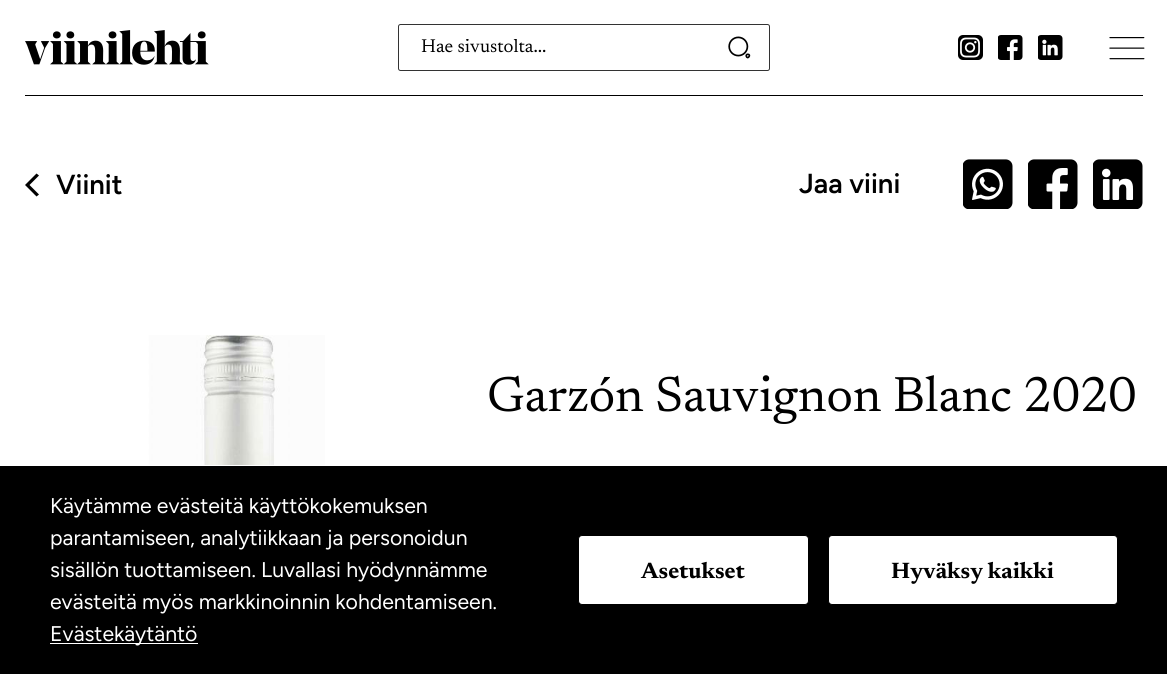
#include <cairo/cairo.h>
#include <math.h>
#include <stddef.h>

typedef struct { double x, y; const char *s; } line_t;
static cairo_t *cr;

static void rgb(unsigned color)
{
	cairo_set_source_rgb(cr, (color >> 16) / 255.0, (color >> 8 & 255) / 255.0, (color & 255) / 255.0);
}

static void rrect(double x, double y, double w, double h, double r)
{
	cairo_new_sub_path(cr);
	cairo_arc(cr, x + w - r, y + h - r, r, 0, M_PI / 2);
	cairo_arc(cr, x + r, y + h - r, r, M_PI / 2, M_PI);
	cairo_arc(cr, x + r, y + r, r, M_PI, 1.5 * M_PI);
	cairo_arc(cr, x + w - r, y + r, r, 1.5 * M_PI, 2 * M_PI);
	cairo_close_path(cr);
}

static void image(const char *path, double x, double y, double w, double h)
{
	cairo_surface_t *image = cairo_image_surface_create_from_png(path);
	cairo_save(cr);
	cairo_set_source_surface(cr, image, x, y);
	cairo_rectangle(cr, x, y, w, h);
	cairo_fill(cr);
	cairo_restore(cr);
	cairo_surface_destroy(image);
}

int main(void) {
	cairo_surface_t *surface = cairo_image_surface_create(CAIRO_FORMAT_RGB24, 1167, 674);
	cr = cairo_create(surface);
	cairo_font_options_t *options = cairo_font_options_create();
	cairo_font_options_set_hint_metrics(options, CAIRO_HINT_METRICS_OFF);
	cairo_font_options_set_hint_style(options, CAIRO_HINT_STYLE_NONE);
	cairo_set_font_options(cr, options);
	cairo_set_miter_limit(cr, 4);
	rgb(0xffffff);
	cairo_paint(cr);
	rgb(0x000000);
	cairo_rectangle(cr, 25, 95, 1118, 1);
	cairo_fill(cr);
	image("img/1.png", 25, 30, 184, 35);
	rrect(398.5, 24.5, 371, 46, 2);
	rgb(0x333333);
	cairo_set_line_width(cr, 1);
	cairo_stroke(cr);
	image("img/2.png", 728, 36, 23, 23);
	image("img/3.png", 958, 35, 25, 25);
	image("img/4.png", 998, 35, 25, 25);
	image("img/5.png", 1038, 35, 25, 25);
	image("img/6.png", 1109, 37, 36, 23);
	rgb(0x000000);
	cairo_new_path(cr);
	cairo_move_to(cr, 25, 185);
	cairo_line_to(cr, 36.5, 196.5);
	cairo_line_to(cr, 39, 194.5);
	cairo_line_to(cr, 29.5, 185);
	cairo_line_to(cr, 39, 175.5);
	cairo_line_to(cr, 36.5, 173.5);
	cairo_close_path(cr);
	cairo_fill(cr);
	image("img/7.png", 963, 159, 50, 50);
	image("img/8.png", 1028, 159, 50, 50);
	image("img/9.png", 1093, 159, 50, 50);
	image("img/10.png", 148, 335, 177, 130);
	cairo_rectangle(cr, 0, 466, 1167, 208);
	cairo_fill(cr);
	rgb(0xffffff);
	cairo_rectangle(cr, 50, 643, 148, 1);
	cairo_fill(cr);
	rrect(578.5, 535.5, 230, 69, 3.5);
	cairo_fill_preserve(cr);
	rgb(0x000000);
	cairo_stroke(cr);
	rgb(0xffffff);
	rrect(828.5, 535.5, 289, 69, 3.5);
	cairo_fill_preserve(cr);
	rgb(0x000000);
	cairo_stroke(cr);
	cairo_save(cr);
	cairo_rectangle(cr, 421, 39, 298, 19);
	cairo_clip(cr);
	cairo_select_font_face(cr, "Newsreader", CAIRO_FONT_SLANT_NORMAL, CAIRO_FONT_WEIGHT_NORMAL);
	cairo_set_font_size(cr, 18.75);
	cairo_move_to(cr, 421, 52);
	cairo_show_text(cr, "Hae sivustolta...");
	cairo_restore(cr);
	cairo_select_font_face(cr, "Figtree SemiBold", CAIRO_FONT_SLANT_NORMAL, CAIRO_FONT_WEIGHT_NORMAL);
	cairo_set_font_size(cr, 27.5);
	cairo_move_to(cr, 56, 194);
	cairo_show_text(cr, "Viinit");
	cairo_move_to(cr, 799, 193);
	cairo_show_text(cr, "Jaa viini");
	cairo_select_font_face(cr, "Newsreader", CAIRO_FONT_SLANT_NORMAL, CAIRO_FONT_WEIGHT_NORMAL);
	cairo_set_font_size(cr, 50);
	cairo_move_to(cr, 487, 411);
	cairo_show_text(cr, "Garzón Sauvignon Blanc 2020");
	cairo_select_font_face(cr, "Figtree", CAIRO_FONT_SLANT_NORMAL, CAIRO_FONT_WEIGHT_NORMAL);
	cairo_set_font_size(cr, 21.25);
	rgb(0xffffff);
	{
		static const line_t items[] = {
			{50, 513, "Käytämme evästeitä käyttökokemuksen"},
			{50, 545, "parantamiseen, analytiikkaan ja personoidun"},
			{50, 577, "sisällön tuottamiseen. Luvallasi hyödynnämme"},
			{50, 609, "evästeitä myös markkinoinnin kohdentamiseen."},
			{50, 641, "Evästekäytäntö"},
		};
		for (size_t i = 0; i < sizeof items / sizeof *items; i++) {
			cairo_move_to(cr, items[i].x, items[i].y);
			cairo_show_text(cr, items[i].s);
		}
	}
	cairo_select_font_face(cr, "Newsreader", CAIRO_FONT_SLANT_NORMAL, CAIRO_FONT_WEIGHT_BOLD);
	cairo_set_font_size(cr, 22.5);
	rgb(0x000000);
	cairo_move_to(cr, 641, 578);
	cairo_show_text(cr, "Asetukset");
	cairo_move_to(cr, 891, 578);
	cairo_show_text(cr, "Hyväksy kaikki");
	cairo_surface_write_to_png(surface, "page.png");
	cairo_font_options_destroy(options);
	cairo_destroy(cr);
	cairo_surface_destroy(surface);
	return 0;
}
